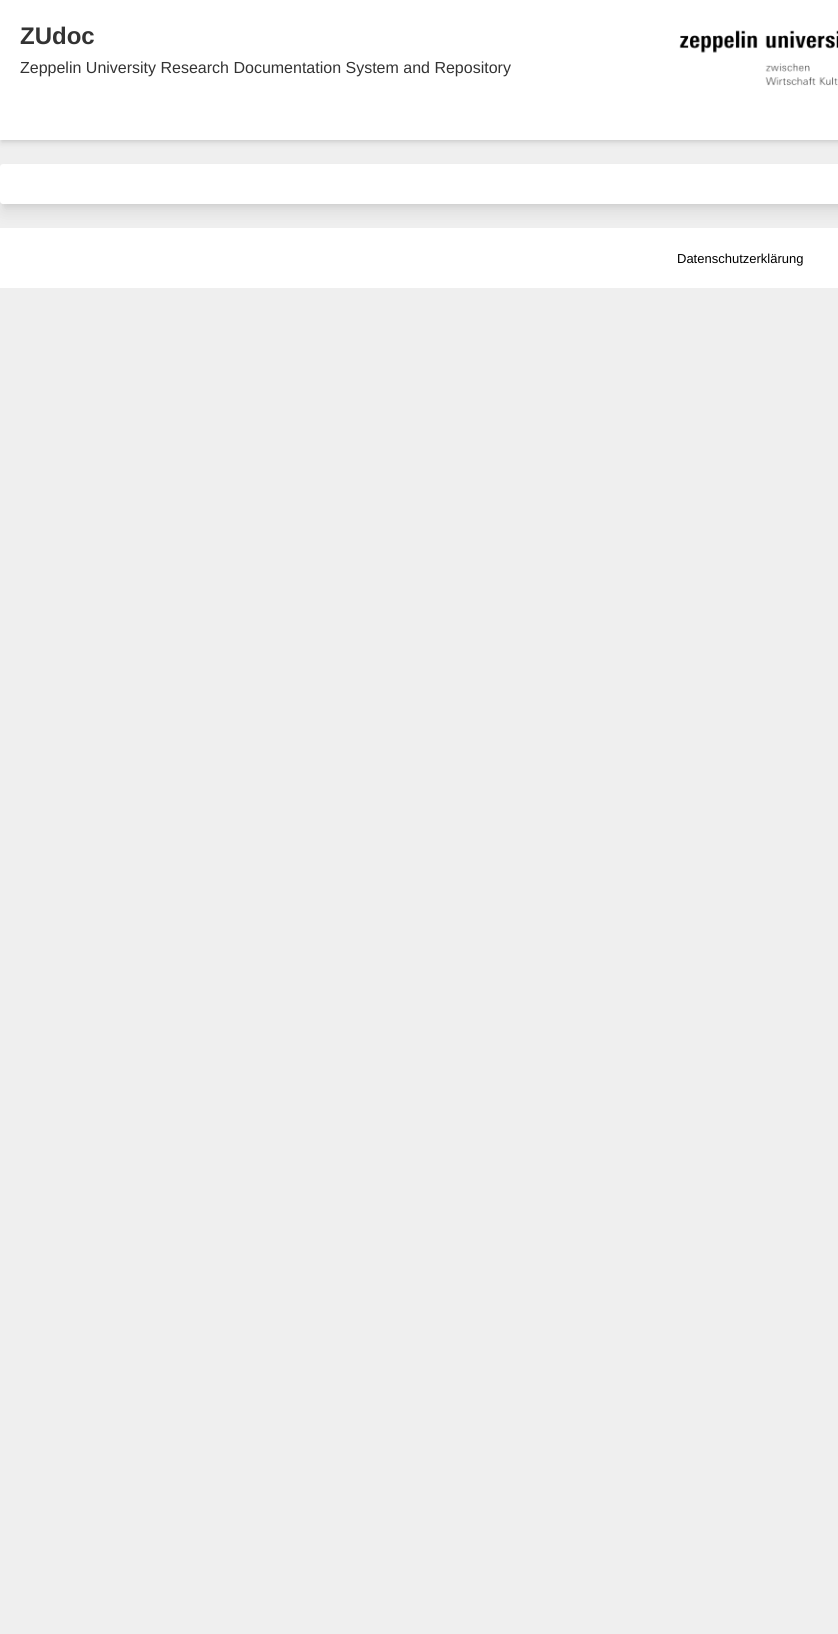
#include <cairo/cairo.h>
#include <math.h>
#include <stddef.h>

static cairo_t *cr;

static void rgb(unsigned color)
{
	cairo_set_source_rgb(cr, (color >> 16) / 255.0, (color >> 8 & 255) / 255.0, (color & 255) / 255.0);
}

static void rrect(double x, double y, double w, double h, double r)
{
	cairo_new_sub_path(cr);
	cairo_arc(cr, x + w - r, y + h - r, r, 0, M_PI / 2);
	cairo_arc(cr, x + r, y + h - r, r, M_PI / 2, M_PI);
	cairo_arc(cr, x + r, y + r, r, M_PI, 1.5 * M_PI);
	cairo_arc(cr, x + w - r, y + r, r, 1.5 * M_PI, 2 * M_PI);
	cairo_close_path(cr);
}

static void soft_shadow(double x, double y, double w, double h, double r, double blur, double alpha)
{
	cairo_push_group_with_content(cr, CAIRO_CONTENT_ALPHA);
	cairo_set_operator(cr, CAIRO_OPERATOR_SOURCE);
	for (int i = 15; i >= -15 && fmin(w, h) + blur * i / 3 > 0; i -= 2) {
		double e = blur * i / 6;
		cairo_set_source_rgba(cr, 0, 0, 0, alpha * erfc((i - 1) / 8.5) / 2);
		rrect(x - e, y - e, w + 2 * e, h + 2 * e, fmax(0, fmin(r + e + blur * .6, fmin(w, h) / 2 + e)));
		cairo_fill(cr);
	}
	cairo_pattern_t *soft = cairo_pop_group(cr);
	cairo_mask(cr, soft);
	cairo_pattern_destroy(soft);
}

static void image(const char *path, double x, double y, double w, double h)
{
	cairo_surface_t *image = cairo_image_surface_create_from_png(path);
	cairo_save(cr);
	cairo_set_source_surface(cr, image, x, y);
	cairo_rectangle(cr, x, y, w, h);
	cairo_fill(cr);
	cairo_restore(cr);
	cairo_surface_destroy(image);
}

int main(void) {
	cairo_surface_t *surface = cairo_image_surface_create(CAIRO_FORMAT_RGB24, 838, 1634);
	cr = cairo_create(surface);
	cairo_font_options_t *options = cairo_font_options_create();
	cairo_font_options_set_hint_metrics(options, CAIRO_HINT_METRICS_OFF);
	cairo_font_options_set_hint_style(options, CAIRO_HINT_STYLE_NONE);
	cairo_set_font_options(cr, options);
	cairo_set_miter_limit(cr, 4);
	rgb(0xefefef);
	cairo_paint(cr);
	rgb(0xffffff);
	cairo_rectangle(cr, 0, 0, 838, 100);
	cairo_fill(cr);
	image("img/1.png", 679, 30, 159, 56);
	rgb(0x000000);
	soft_shadow(2, 104, 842, 36, 0, 2, 0.1);
	soft_shadow(1, 105, 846, 38, 0, 3, 0.1);
	rgb(0xffffff);
	cairo_rectangle(cr, 0, 100, 838, 40);
	cairo_fill(cr);
	rgb(0x000000);
	soft_shadow(4, 172, 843, 32, 0, 3, 0.1);
	rgb(0xffffff);
	cairo_rectangle(cr, 0, 228, 838, 60);
	cairo_fill(cr);
	rgb(0x000000);
	soft_shadow(3, 177, 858, 34, 0, 7.5, 0.1);
	rgb(0xffffff);
	rrect(0, 164, 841, 40, 3);
	cairo_fill(cr);
	cairo_select_font_face(cr, "Liberation Sans", CAIRO_FONT_SLANT_NORMAL, CAIRO_FONT_WEIGHT_BOLD);
	cairo_set_font_size(cr, 24);
	rgb(0x333333);
	cairo_move_to(cr, 20, 44);
	cairo_show_text(cr, "ZUdoc");
	cairo_select_font_face(cr, "Liberation Sans", CAIRO_FONT_SLANT_NORMAL, CAIRO_FONT_WEIGHT_NORMAL);
	cairo_set_font_size(cr, 16);
	cairo_move_to(cr, 20, 73);
	cairo_show_text(cr, "Zeppelin University Research Documentation System and Repository");
	cairo_set_font_size(cr, 13);
	rgb(0x000000);
	cairo_move_to(cr, 677, 263);
	cairo_show_text(cr, "Datenschutzerklärung");
	cairo_surface_write_to_png(surface, "page.png");
	cairo_font_options_destroy(options);
	cairo_destroy(cr);
	cairo_surface_destroy(surface);
	return 0;
}
